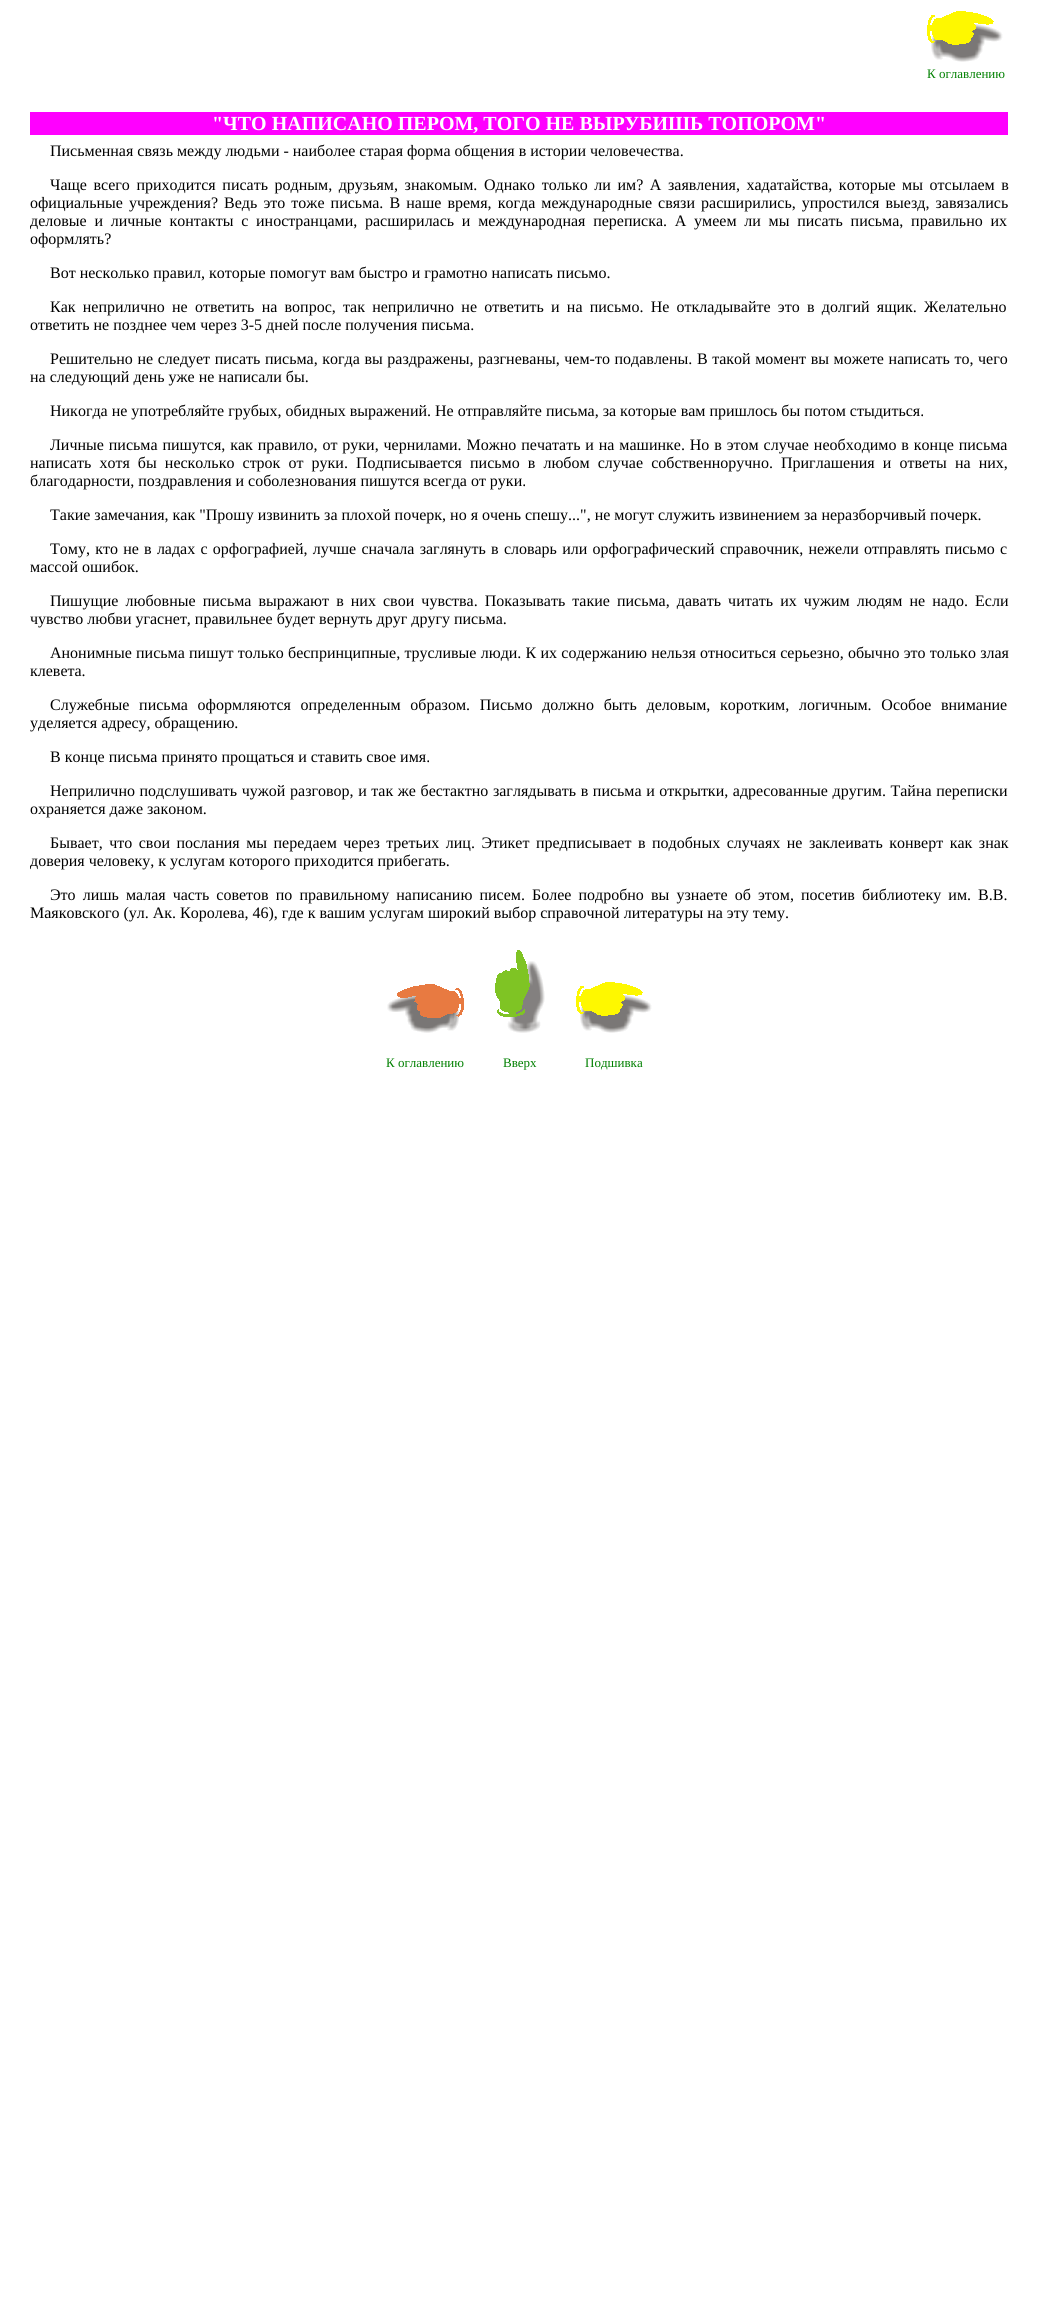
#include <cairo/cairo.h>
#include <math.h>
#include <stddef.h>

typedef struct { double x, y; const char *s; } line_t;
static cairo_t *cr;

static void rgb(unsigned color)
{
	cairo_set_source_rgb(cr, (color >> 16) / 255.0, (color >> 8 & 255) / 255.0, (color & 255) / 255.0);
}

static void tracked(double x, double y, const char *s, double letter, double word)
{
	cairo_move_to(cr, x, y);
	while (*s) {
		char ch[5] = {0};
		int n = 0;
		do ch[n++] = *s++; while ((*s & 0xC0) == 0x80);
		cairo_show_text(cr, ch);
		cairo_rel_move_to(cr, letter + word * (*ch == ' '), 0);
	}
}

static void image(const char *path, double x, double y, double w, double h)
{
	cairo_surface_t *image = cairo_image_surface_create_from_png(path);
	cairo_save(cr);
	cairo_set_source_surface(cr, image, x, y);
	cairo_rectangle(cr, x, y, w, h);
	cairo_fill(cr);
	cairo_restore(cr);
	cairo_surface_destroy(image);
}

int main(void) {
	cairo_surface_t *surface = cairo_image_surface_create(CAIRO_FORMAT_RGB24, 1038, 2317);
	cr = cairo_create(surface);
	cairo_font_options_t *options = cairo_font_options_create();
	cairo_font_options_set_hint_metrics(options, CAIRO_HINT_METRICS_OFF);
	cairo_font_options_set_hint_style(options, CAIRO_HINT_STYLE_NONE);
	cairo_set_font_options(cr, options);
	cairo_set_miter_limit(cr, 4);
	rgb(0xffffff);
	cairo_paint(cr);
	image("img/1.png", 927, 11, 76, 51);
	rgb(0xff00ff);
	cairo_rectangle(cr, 30, 112, 978, 23);
	cairo_fill(cr);
	image("img/2.png", 387, 984, 77, 49);
	image("img/3.png", 495, 950, 50, 83);
	image("img/1.png", 576, 982, 76, 51);
	cairo_select_font_face(cr, "Liberation Serif", CAIRO_FONT_SLANT_NORMAL, CAIRO_FONT_WEIGHT_NORMAL);
	cairo_set_font_size(cr, 13);
	rgb(0x008000);
	cairo_move_to(cr, 927, 78);
	cairo_show_text(cr, "К оглавлению");
	cairo_select_font_face(cr, "Liberation Serif", CAIRO_FONT_SLANT_NORMAL, CAIRO_FONT_WEIGHT_BOLD);
	cairo_set_font_size(cr, 20);
	rgb(0xffffff);
	cairo_move_to(cr, 212, 130);
	cairo_show_text(cr, "\"ЧТО НАПИСАНО ПЕРОМ, ТОГО НЕ ВЫРУБИШЬ ТОПОРОМ\"");
	cairo_select_font_face(cr, "Liberation Serif", CAIRO_FONT_SLANT_NORMAL, CAIRO_FONT_WEIGHT_NORMAL);
	cairo_set_font_size(cr, 16);
	rgb(0x000000);
	cairo_move_to(cr, 50, 156);
	cairo_show_text(cr, "Письменная связь между людьми - наиболее старая форма общения в истории человечества.");
	tracked(50, 190, "Чаще всего приходится писать родным, друзьям, знакомым. Однако только ли им? А заявления, хадатайства, которые мы отсылаем в", 0, 2.6);
	tracked(30, 208, "официальные учреждения? Ведь это тоже письма. В наше время, когда международные связи расширились, упростился выезд, завязались", 0, 2.1);
	tracked(30, 226, "деловые и личные контакты с иностранцами, расширилась и международная переписка. А умеем ли мы писать письма, правильно их", 0, 3.75);
	cairo_move_to(cr, 30, 244);
	cairo_show_text(cr, "оформлять?");
	cairo_move_to(cr, 50, 278);
	cairo_show_text(cr, "Вот несколько правил, которые помогут вам быстро и грамотно написать письмо.");
	tracked(50, 312, "Как неприлично не ответить на вопрос, так неприлично не ответить и на письмо. Не откладывайте это в долгий ящик. Желательно", 0, 3.25);
	cairo_move_to(cr, 30, 330);
	cairo_show_text(cr, "ответить не позднее чем через 3-5 дней после получения письма.");
	tracked(50, 364, "Решительно не следует писать письма, когда вы раздражены, разгневаны, чем-то подавлены. В такой момент вы можете написать то, чего", 0, 0.6);
	cairo_move_to(cr, 30, 382);
	cairo_show_text(cr, "на следующий день уже не написали бы.");
	cairo_move_to(cr, 50, 416);
	cairo_show_text(cr, "Никогда не употребляйте грубых, обидных выражений. Не отправляйте письма, за которые вам пришлось бы потом стыдиться.");
	tracked(50, 450, "Личные письма пишутся, как правило, от руки, чернилами. Можно печатать и на машинке. Но в этом случае необходимо в конце письма", 0, 0.9);
	tracked(30, 468, "написать хотя бы несколько строк от руки. Подписывается письмо в любом случае собственноручно. Приглашения и ответы на них,", 0, 4.1);
	cairo_move_to(cr, 30, 486);
	cairo_show_text(cr, "благодарности, поздравления и соболезнования пишутся всегда от руки.");
	cairo_move_to(cr, 50, 520);
	cairo_show_text(cr, "Такие замечания, как \"Прошу извинить за плохой почерк, но я очень спешу...\", не могут служить извинением за неразборчивый почерк.");
	tracked(50, 554, "Тому, кто не в ладах с орфографией, лучше сначала заглянуть в словарь или орфографический справочник, нежели отправлять письмо с", 0, 1.25);
	cairo_move_to(cr, 30, 572);
	cairo_show_text(cr, "массой ошибок.");
	tracked(50, 606, "Пишущие любовные письма выражают в них свои чувства. Показывать такие письма, давать читать их чужим людям не надо. Если", 0, 3.1);
	cairo_move_to(cr, 30, 624);
	cairo_show_text(cr, "чувство любви угаснет, правильнее будет вернуть друг другу письма.");
	tracked(50, 658, "Анонимные письма пишут только беспринципные, трусливые люди. К их содержанию нельзя относиться серьезно, обычно это только злая", 0, 0.25);
	cairo_move_to(cr, 30, 676);
	cairo_show_text(cr, "клевета.");
	tracked(50, 710, "Служебные письма оформляются определенным образом. Письмо должно быть деловым, коротким, логичным. Особое внимание", 0, 5.75);
	cairo_move_to(cr, 30, 728);
	cairo_show_text(cr, "уделяется адресу, обращению.");
	cairo_move_to(cr, 50, 762);
	cairo_show_text(cr, "В конце письма принято прощаться и ставить свое имя.");
	tracked(50, 796, "Неприлично подслушивать чужой разговор, и так же бестактно заглядывать в письма и открытки, адресованные другим. Тайна переписки", 0, 0.6);
	cairo_move_to(cr, 30, 814);
	cairo_show_text(cr, "охраняется даже законом.");
	tracked(50, 848, "Бывает, что свои послания мы передаем через третьих лиц. Этикет предписывает в подобных случаях не заклеивать конверт как знак", 0, 2.5);
	cairo_move_to(cr, 30, 866);
	cairo_show_text(cr, "доверия человеку, к услугам которого приходится прибегать.");
	tracked(50, 900, "Это лишь малая часть советов по правильному написанию писем. Более подробно вы узнаете об этом, посетив библиотеку им. В.В.", 0, 3.1);
	cairo_move_to(cr, 30, 918);
	cairo_show_text(cr, "Маяковского (ул. Ак. Королева, 46), где к вашим услугам широкий выбор справочной литературы на эту тему.");
	cairo_set_font_size(cr, 13);
	rgb(0x008000);
	{
		static const line_t items[] = {
			{386, 1067, "К оглавлению"},
			{503, 1067, "Вверх"},
			{585, 1067, "Подшивка"},
		};
		for (size_t i = 0; i < sizeof items / sizeof *items; i++) {
			cairo_move_to(cr, items[i].x, items[i].y);
			cairo_show_text(cr, items[i].s);
		}
	}
	cairo_surface_write_to_png(surface, "page.png");
	cairo_font_options_destroy(options);
	cairo_destroy(cr);
	cairo_surface_destroy(surface);
	return 0;
}
